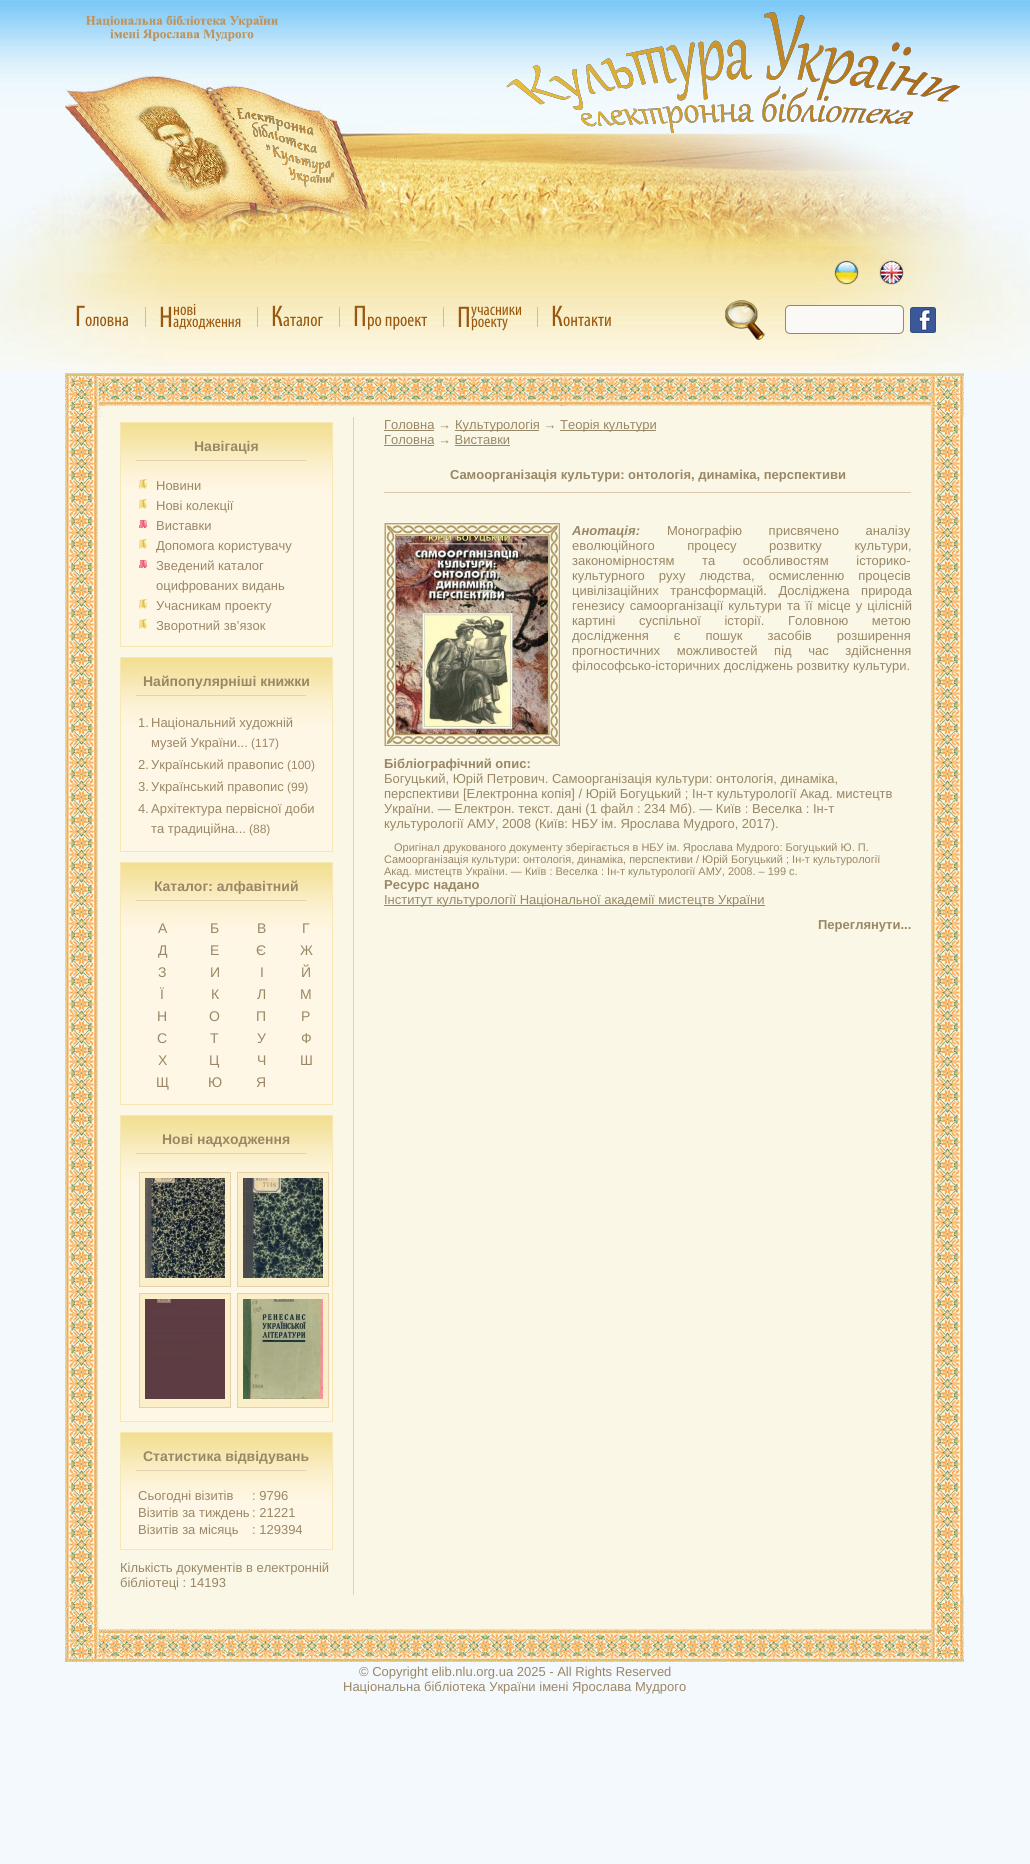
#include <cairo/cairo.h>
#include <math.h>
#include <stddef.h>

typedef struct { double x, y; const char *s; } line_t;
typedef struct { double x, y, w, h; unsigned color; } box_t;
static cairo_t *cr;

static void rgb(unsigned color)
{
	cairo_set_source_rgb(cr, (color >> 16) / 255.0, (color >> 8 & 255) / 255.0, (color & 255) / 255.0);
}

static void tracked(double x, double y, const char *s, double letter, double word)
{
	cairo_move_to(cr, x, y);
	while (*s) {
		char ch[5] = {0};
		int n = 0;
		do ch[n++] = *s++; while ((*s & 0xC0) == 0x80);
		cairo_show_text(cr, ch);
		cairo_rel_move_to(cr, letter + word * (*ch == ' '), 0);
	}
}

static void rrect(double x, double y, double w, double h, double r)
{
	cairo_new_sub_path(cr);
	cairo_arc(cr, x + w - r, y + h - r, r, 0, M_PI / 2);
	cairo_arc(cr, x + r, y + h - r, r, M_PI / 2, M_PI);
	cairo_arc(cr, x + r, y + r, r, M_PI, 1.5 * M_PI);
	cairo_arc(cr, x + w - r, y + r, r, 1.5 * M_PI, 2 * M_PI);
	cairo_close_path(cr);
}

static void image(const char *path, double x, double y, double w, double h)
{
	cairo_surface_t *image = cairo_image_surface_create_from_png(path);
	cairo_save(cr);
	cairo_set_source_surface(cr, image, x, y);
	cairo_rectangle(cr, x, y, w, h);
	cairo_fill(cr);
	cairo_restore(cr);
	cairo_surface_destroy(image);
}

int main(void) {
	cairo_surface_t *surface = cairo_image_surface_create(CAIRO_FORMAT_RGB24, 1030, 1864);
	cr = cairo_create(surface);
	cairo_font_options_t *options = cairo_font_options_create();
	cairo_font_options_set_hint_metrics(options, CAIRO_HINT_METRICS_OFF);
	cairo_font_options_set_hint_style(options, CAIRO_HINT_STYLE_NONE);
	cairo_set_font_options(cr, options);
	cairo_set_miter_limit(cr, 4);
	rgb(0xf4f9fd);
	cairo_paint(cr);
	image("img/1.png", 0, 0, 1030, 90);
	image("img/2.png", 0, 90, 1030, 282);
	image("img/3.png", 65, 72, 899, 201);
	image("img/4.png", 85, 15, 193, 27);
	image("img/5.png", 506, 12, 454, 121);
	image("img/6.png", 105, 105, 125, 88);
	image("img/7.png", 236, 108, 98, 79);
	{
		static const box_t items[] = {
			{145, 307, 1, 20, 0xd8bb87},
			{257, 307, 1, 20, 0xd8bb87},
			{339, 307, 1, 20, 0xd8bb87},
			{443, 307, 1, 20, 0xd8bb87},
			{537, 307, 1, 20, 0xd8bb87},
		};
		for (size_t i = 0; i < sizeof items / sizeof *items; i++) {
			rgb(items[i].color);
			cairo_rectangle(cr, items[i].x, items[i].y, items[i].w, items[i].h);
			cairo_fill(cr);
		}
	}
	image("img/8.png", 834, 260, 25, 25);
	image("img/9.png", 879, 260, 25, 25);
	image("img/10.png", 725, 300, 40, 40);
	rgb(0xfaf9f5);
	rrect(785.5, 305.5, 118, 28, 4.5);
	cairo_fill_preserve(cr);
	rgb(0x9a8766);
	cairo_set_line_width(cr, 1);
	cairo_stroke(cr);
	image("img/11.png", 910, 307, 26, 26);
	image("img/12.png", 65, 373, 899, 44);
	image("img/13.png", 65, 417, 34, 1178);
	{
		static const box_t items[] = {
			{100, 417, 253, 1178, 0xfaf7e6},
			{353, 417, 1, 1178, 0xe4d1b1},
			{121, 489, 211, 157, 0xfff7e6},
		};
		for (size_t i = 0; i < sizeof items / sizeof *items; i++) {
			rgb(items[i].color);
			cairo_rectangle(cr, items[i].x, items[i].y, items[i].w, items[i].h);
			cairo_fill(cr);
		}
	}
	image("img/14.png", 121, 423, 211, 66);
	cairo_rectangle(cr, 120.5, 422.5, 212, 224);
	rgb(0xf7e8b3);
	cairo_stroke(cr);
	rgb(0xe4d1b1);
	cairo_rectangle(cr, 136, 460, 170, 1);
	cairo_fill(cr);
	image("img/15.png", 139, 479, 8, 10);
	image("img/16.png", 139, 499, 8, 10);
	image("img/17.png", 139, 520, 8, 8);
	image("img/16.png", 139, 539, 8, 10);
	image("img/17.png", 139, 560, 8, 8);
	image("img/16.png", 139, 599, 8, 10);
	image("img/16.png", 139, 619, 8, 10);
	rgb(0xfff7e6);
	cairo_rectangle(cr, 121, 724, 211, 127);
	cairo_fill(cr);
	image("img/14.png", 121, 658, 211, 66);
	cairo_rectangle(cr, 120.5, 657.5, 212, 194);
	rgb(0xf7e8b3);
	cairo_stroke(cr);
	rgb(0xe4d1b1);
	cairo_rectangle(cr, 136, 695, 170, 1);
	cairo_fill(cr);
	rgb(0xfff7e6);
	cairo_rectangle(cr, 121, 929, 211, 175);
	cairo_fill(cr);
	image("img/14.png", 121, 863, 211, 66);
	cairo_rectangle(cr, 120.5, 862.5, 212, 242);
	rgb(0xf7e8b3);
	cairo_stroke(cr);
	rgb(0xe4d1b1);
	cairo_rectangle(cr, 136, 900, 170, 1);
	cairo_fill(cr);
	rgb(0xfff7e6);
	cairo_rectangle(cr, 121, 1182, 211, 239);
	cairo_fill(cr);
	image("img/14.png", 121, 1116, 211, 66);
	cairo_rectangle(cr, 120.5, 1115.5, 212, 306);
	rgb(0xf7e8b3);
	cairo_stroke(cr);
	rgb(0xe4d1b1);
	cairo_rectangle(cr, 136, 1153, 170, 1);
	cairo_fill(cr);
	rgb(0xfaefc9);
	cairo_rectangle(cr, 139.5, 1172.5, 91, 114);
	cairo_fill_preserve(cr);
	rgb(0xe5d0ac);
	cairo_stroke(cr);
	image("img/18.png", 145, 1178, 80, 100);
	rgb(0xfaefc9);
	cairo_rectangle(cr, 237.5, 1172.5, 91, 114);
	cairo_fill_preserve(cr);
	rgb(0xe5d0ac);
	cairo_stroke(cr);
	image("img/19.png", 243, 1178, 80, 100);
	rgb(0xfaefc9);
	cairo_rectangle(cr, 139.5, 1293.5, 91, 114);
	cairo_fill_preserve(cr);
	rgb(0xe5d0ac);
	cairo_stroke(cr);
	image("img/20.png", 145, 1299, 80, 100);
	rgb(0xfaefc9);
	cairo_rectangle(cr, 237.5, 1293.5, 91, 114);
	cairo_fill_preserve(cr);
	rgb(0xe5d0ac);
	cairo_stroke(cr);
	image("img/21.png", 243, 1299, 80, 100);
	rgb(0xfff7e6);
	cairo_rectangle(cr, 121, 1499, 211, 50);
	cairo_fill(cr);
	image("img/14.png", 121, 1433, 211, 66);
	cairo_rectangle(cr, 120.5, 1432.5, 212, 117);
	rgb(0xf7e8b3);
	cairo_stroke(cr);
	{
		static const box_t items[] = {
			{136, 1470, 170, 1, 0xe4d1b1},
			{354, 417, 577, 1178, 0xfaf7e6},
			{384, 430, 50, 1, 0x9a8766},
			{455, 430, 84, 1, 0x9a8766},
			{560, 430, 96, 1, 0x9a8766},
			{384, 445, 50, 1, 0x9a8766},
			{455, 445, 55, 1, 0x9a8766},
			{384, 492, 527, 1, 0xdac7a7},
		};
		for (size_t i = 0; i < sizeof items / sizeof *items; i++) {
			rgb(items[i].color);
			cairo_rectangle(cr, items[i].x, items[i].y, items[i].w, items[i].h);
			cairo_fill(cr);
		}
	}
	image("img/22.png", 384, 523, 176, 223);
	image("img/23.png", 396, 536, 152, 198);
	rgb(0x9a8766);
	cairo_rectangle(cr, 384, 905, 381, 1);
	cairo_fill(cr);
	image("img/24.png", 931, 417, 32, 1178);
	image("img/25.png", 65, 1595, 899, 67);
	cairo_select_font_face(cr, "Myriad", CAIRO_FONT_SLANT_NORMAL, CAIRO_FONT_WEIGHT_NORMAL);
	cairo_set_font_size(cr, 30);
	rgb(0x995810);
	cairo_move_to(cr, 75, 326);
	cairo_show_text(cr, "Г");
	cairo_set_font_size(cr, 19);
	cairo_move_to(cr, 85, 326);
	cairo_show_text(cr, "оловна");
	cairo_set_font_size(cr, 30);
	cairo_move_to(cr, 159, 327);
	cairo_show_text(cr, "Н");
	cairo_set_font_size(cr, 17);
	cairo_move_to(cr, 173, 315);
	cairo_show_text(cr, "нові");
	cairo_move_to(cr, 173, 327);
	cairo_show_text(cr, "адходження");
	cairo_set_font_size(cr, 30);
	cairo_move_to(cr, 271, 326);
	cairo_show_text(cr, "К");
	cairo_set_font_size(cr, 19);
	cairo_move_to(cr, 283, 326);
	cairo_show_text(cr, "аталог");
	cairo_set_font_size(cr, 30);
	cairo_move_to(cr, 353, 326);
	cairo_show_text(cr, "П");
	cairo_set_font_size(cr, 19);
	cairo_move_to(cr, 367, 326);
	cairo_show_text(cr, "ро проект");
	cairo_set_font_size(cr, 30);
	cairo_move_to(cr, 457, 327);
	cairo_show_text(cr, "П");
	cairo_set_font_size(cr, 17);
	cairo_move_to(cr, 471, 315);
	cairo_show_text(cr, "учасники");
	cairo_move_to(cr, 471, 327);
	cairo_show_text(cr, "роекту");
	cairo_set_font_size(cr, 30);
	cairo_move_to(cr, 551, 326);
	cairo_show_text(cr, "К");
	cairo_set_font_size(cr, 19);
	cairo_move_to(cr, 563, 326);
	cairo_show_text(cr, "онтакти");
	cairo_select_font_face(cr, "Liberation Sans", CAIRO_FONT_SLANT_NORMAL, CAIRO_FONT_WEIGHT_BOLD);
	cairo_set_font_size(cr, 14);
	rgb(0x9a8766);
	cairo_move_to(cr, 194, 451);
	cairo_show_text(cr, "Навігація");
	cairo_select_font_face(cr, "Liberation Sans", CAIRO_FONT_SLANT_NORMAL, CAIRO_FONT_WEIGHT_NORMAL);
	cairo_set_font_size(cr, 13);
	{
		static const line_t items[] = {
			{156, 490, "Новини"},
			{156, 510, "Нові колекції"},
			{156, 530, "Виставки"},
			{156, 550, "Допомога користувачу"},
			{156, 570, "Зведений каталог"},
			{156, 590, "оцифрованих видань"},
			{156, 610, "Учасникам проекту"},
			{156, 630, "Зворотний зв’язок"},
		};
		for (size_t i = 0; i < sizeof items / sizeof *items; i++) {
			cairo_move_to(cr, items[i].x, items[i].y);
			cairo_show_text(cr, items[i].s);
		}
	}
	cairo_select_font_face(cr, "Liberation Sans", CAIRO_FONT_SLANT_NORMAL, CAIRO_FONT_WEIGHT_BOLD);
	cairo_set_font_size(cr, 14);
	cairo_move_to(cr, 143, 686);
	cairo_show_text(cr, "Найпопулярніші книжки");
	cairo_select_font_face(cr, "Liberation Sans", CAIRO_FONT_SLANT_NORMAL, CAIRO_FONT_WEIGHT_NORMAL);
	cairo_set_font_size(cr, 13);
	{
		static const line_t items[] = {
			{138, 727, "1."},
			{151, 727, "Національний художній"},
			{151, 747, "музей України..."},
		};
		for (size_t i = 0; i < sizeof items / sizeof *items; i++) {
			cairo_move_to(cr, items[i].x, items[i].y);
			cairo_show_text(cr, items[i].s);
		}
	}
	cairo_set_font_size(cr, 12);
	cairo_move_to(cr, 251, 747);
	cairo_show_text(cr, "(117)");
	cairo_set_font_size(cr, 13);
	cairo_move_to(cr, 138, 769);
	cairo_show_text(cr, "2.");
	cairo_move_to(cr, 151, 769);
	cairo_show_text(cr, "Український правопис");
	cairo_set_font_size(cr, 12);
	cairo_move_to(cr, 287, 769);
	cairo_show_text(cr, "(100)");
	cairo_set_font_size(cr, 13);
	cairo_move_to(cr, 138, 791);
	cairo_show_text(cr, "3.");
	cairo_move_to(cr, 151, 791);
	cairo_show_text(cr, "Український правопис");
	cairo_set_font_size(cr, 12);
	cairo_move_to(cr, 287, 791);
	cairo_show_text(cr, "(99)");
	cairo_set_font_size(cr, 13);
	{
		static const line_t items[] = {
			{138, 813, "4."},
			{151, 813, "Архітектура первісної доби"},
			{151, 833, "та традиційна..."},
		};
		for (size_t i = 0; i < sizeof items / sizeof *items; i++) {
			cairo_move_to(cr, items[i].x, items[i].y);
			cairo_show_text(cr, items[i].s);
		}
	}
	cairo_set_font_size(cr, 12);
	cairo_move_to(cr, 249, 833);
	cairo_show_text(cr, "(88)");
	cairo_select_font_face(cr, "Liberation Sans", CAIRO_FONT_SLANT_NORMAL, CAIRO_FONT_WEIGHT_BOLD);
	cairo_set_font_size(cr, 14);
	cairo_move_to(cr, 154, 891);
	cairo_show_text(cr, "Каталог: алфавітний");
	cairo_select_font_face(cr, "Liberation Sans", CAIRO_FONT_SLANT_NORMAL, CAIRO_FONT_WEIGHT_NORMAL);
	{
		static const line_t items[] = {
			{158, 933, "А"},
			{210, 933, "Б"},
			{257, 933, "В"},
			{302, 933, "Г"},
			{158, 955, "Д"},
			{210, 955, "Е"},
			{256, 955, "Є"},
			{300, 955, "Ж"},
			{158, 977, "З"},
			{210, 977, "И"},
			{260, 977, "І"},
			{301, 977, "Й"},
			{160, 999, "Ї"},
			{211, 999, "К"},
			{257, 999, "Л"},
			{300, 999, "М"},
			{157, 1021, "Н"},
			{209, 1021, "О"},
			{256, 1021, "П"},
			{301, 1021, "Р"},
			{157, 1043, "С"},
			{210, 1043, "Т"},
			{257, 1043, "У"},
			{301, 1043, "Ф"},
			{158, 1065, "Х"},
			{209, 1065, "Ц"},
			{257, 1065, "Ч"},
			{300, 1065, "Ш"},
			{156, 1087, "Щ"},
			{208, 1087, "Ю"},
			{256, 1087, "Я"},
		};
		for (size_t i = 0; i < sizeof items / sizeof *items; i++) {
			cairo_move_to(cr, items[i].x, items[i].y);
			cairo_show_text(cr, items[i].s);
		}
	}
	cairo_select_font_face(cr, "Liberation Sans", CAIRO_FONT_SLANT_NORMAL, CAIRO_FONT_WEIGHT_BOLD);
	cairo_move_to(cr, 162, 1144);
	cairo_show_text(cr, "Нові надходження");
	cairo_move_to(cr, 143, 1461);
	cairo_show_text(cr, "Статистика відвідувань");
	cairo_select_font_face(cr, "Liberation Sans", CAIRO_FONT_SLANT_NORMAL, CAIRO_FONT_WEIGHT_NORMAL);
	cairo_set_font_size(cr, 13);
	{
		static const line_t items[] = {
			{138, 1500, "Сьогодні візитів"},
			{252, 1500, ": 9796"},
			{138, 1517, "Візитів за тиждень"},
			{252, 1517, ": 21221"},
			{138, 1534, "Візитів за місяць"},
			{252, 1534, ": 129394"},
			{120, 1572, "Кількість документів в електронній"},
			{120, 1587, "бібліотеці : 14193"},
			{384, 429, "Головна →"},
			{455, 429, "Культурологія →"},
			{560, 429, "Теорія культури"},
			{384, 444, "Головна → Виставки"},
		};
		for (size_t i = 0; i < sizeof items / sizeof *items; i++) {
			cairo_move_to(cr, items[i].x, items[i].y);
			cairo_show_text(cr, items[i].s);
		}
	}
	cairo_select_font_face(cr, "Liberation Sans", CAIRO_FONT_SLANT_NORMAL, CAIRO_FONT_WEIGHT_BOLD);
	cairo_move_to(cr, 450, 479);
	cairo_show_text(cr, "Самоорганізація культури: онтологія, динаміка, перспективи");
	cairo_select_font_face(cr, "Liberation Sans", CAIRO_FONT_SLANT_ITALIC, CAIRO_FONT_WEIGHT_BOLD);
	cairo_move_to(cr, 572, 535);
	cairo_show_text(cr, "Анотація:");
	cairo_select_font_face(cr, "Liberation Sans", CAIRO_FONT_SLANT_NORMAL, CAIRO_FONT_WEIGHT_NORMAL);
	tracked(667, 535, "Монографію присвячено аналізу", 0, 23);
	tracked(572, 550, "еволюційного процесу розвитку культури,", 0, 29);
	tracked(572, 565, "закономірностям та особливостям історико-", 0, 24);
	tracked(572, 580, "культурного руху людства, осмисленню процесів", 0, 10.5);
	tracked(572, 595, "цивілізаційних трансформацій. Досліджена природа", 0, 8);
	tracked(572, 610, "генезису самоорганізації культури та її місце у цілісній", 0, 1.5);
	tracked(572, 625, "картині суспільної історії. Головною метою", 0, 20);
	tracked(572, 640, "дослідження є пошук засобів розширення", 0, 21.5);
	tracked(572, 655, "прогностичних можливостей під час здійснення", 0, 13);
	cairo_move_to(cr, 572, 670);
	cairo_show_text(cr, "філософсько-історичних досліджень розвитку культури.");
	cairo_select_font_face(cr, "Liberation Sans", CAIRO_FONT_SLANT_NORMAL, CAIRO_FONT_WEIGHT_BOLD);
	cairo_move_to(cr, 384, 768);
	cairo_show_text(cr, "Бібліографічний опис:");
	cairo_select_font_face(cr, "Liberation Sans", CAIRO_FONT_SLANT_NORMAL, CAIRO_FONT_WEIGHT_NORMAL);
	{
		static const line_t items[] = {
			{384, 783, "Богуцький, Юрій Петрович. Самоорганізація культури: онтологія, динаміка,"},
			{384, 798, "перспективи [Електронна копія] / Юрій Богуцький ; Ін-т культурології Акад. мистецтв"},
			{384, 813, "України. — Електрон. текст. дані (1 файл : 234 Мб). — Київ : Веселка : Ін-т"},
			{384, 828, "культурології АМУ, 2008 (Київ: НБУ ім. Ярослава Мудрого, 2017)."},
		};
		for (size_t i = 0; i < sizeof items / sizeof *items; i++) {
			cairo_move_to(cr, items[i].x, items[i].y);
			cairo_show_text(cr, items[i].s);
		}
	}
	cairo_set_font_size(cr, 11);
	{
		static const line_t items[] = {
			{394, 851, "Оригінал друкованого документу зберігається в НБУ ім. Ярослава Мудрого: Богуцький Ю. П."},
			{384, 863, "Самоорганізація культури: онтологія, динаміка, перспективи / Юрій Богуцький ; Ін-т культурології"},
			{384, 875, "Акад. мистецтв України. — Київ : Веселка : Ін-т культурології АМУ, 2008. – 199 с."},
		};
		for (size_t i = 0; i < sizeof items / sizeof *items; i++) {
			cairo_move_to(cr, items[i].x, items[i].y);
			cairo_show_text(cr, items[i].s);
		}
	}
	cairo_select_font_face(cr, "Liberation Sans", CAIRO_FONT_SLANT_NORMAL, CAIRO_FONT_WEIGHT_BOLD);
	cairo_set_font_size(cr, 13);
	cairo_move_to(cr, 384, 889);
	cairo_show_text(cr, "Ресурс надано");
	cairo_select_font_face(cr, "Liberation Sans", CAIRO_FONT_SLANT_NORMAL, CAIRO_FONT_WEIGHT_NORMAL);
	cairo_move_to(cr, 384, 904);
	cairo_show_text(cr, "Інститут культурології Національної академії мистецтв України");
	cairo_select_font_face(cr, "Liberation Sans", CAIRO_FONT_SLANT_NORMAL, CAIRO_FONT_WEIGHT_BOLD);
	cairo_move_to(cr, 818, 929);
	cairo_show_text(cr, "Переглянути...");
	cairo_select_font_face(cr, "Liberation Sans", CAIRO_FONT_SLANT_NORMAL, CAIRO_FONT_WEIGHT_NORMAL);
	cairo_move_to(cr, 359, 1676);
	cairo_show_text(cr, "© Copyright elib.nlu.org.ua 2025 - All Rights Reserved");
	cairo_move_to(cr, 343, 1691);
	cairo_show_text(cr, "Національна бібліотека України імені Ярослава Мудрого");
	cairo_surface_write_to_png(surface, "page.png");
	cairo_font_options_destroy(options);
	cairo_destroy(cr);
	cairo_surface_destroy(surface);
	return 0;
}
